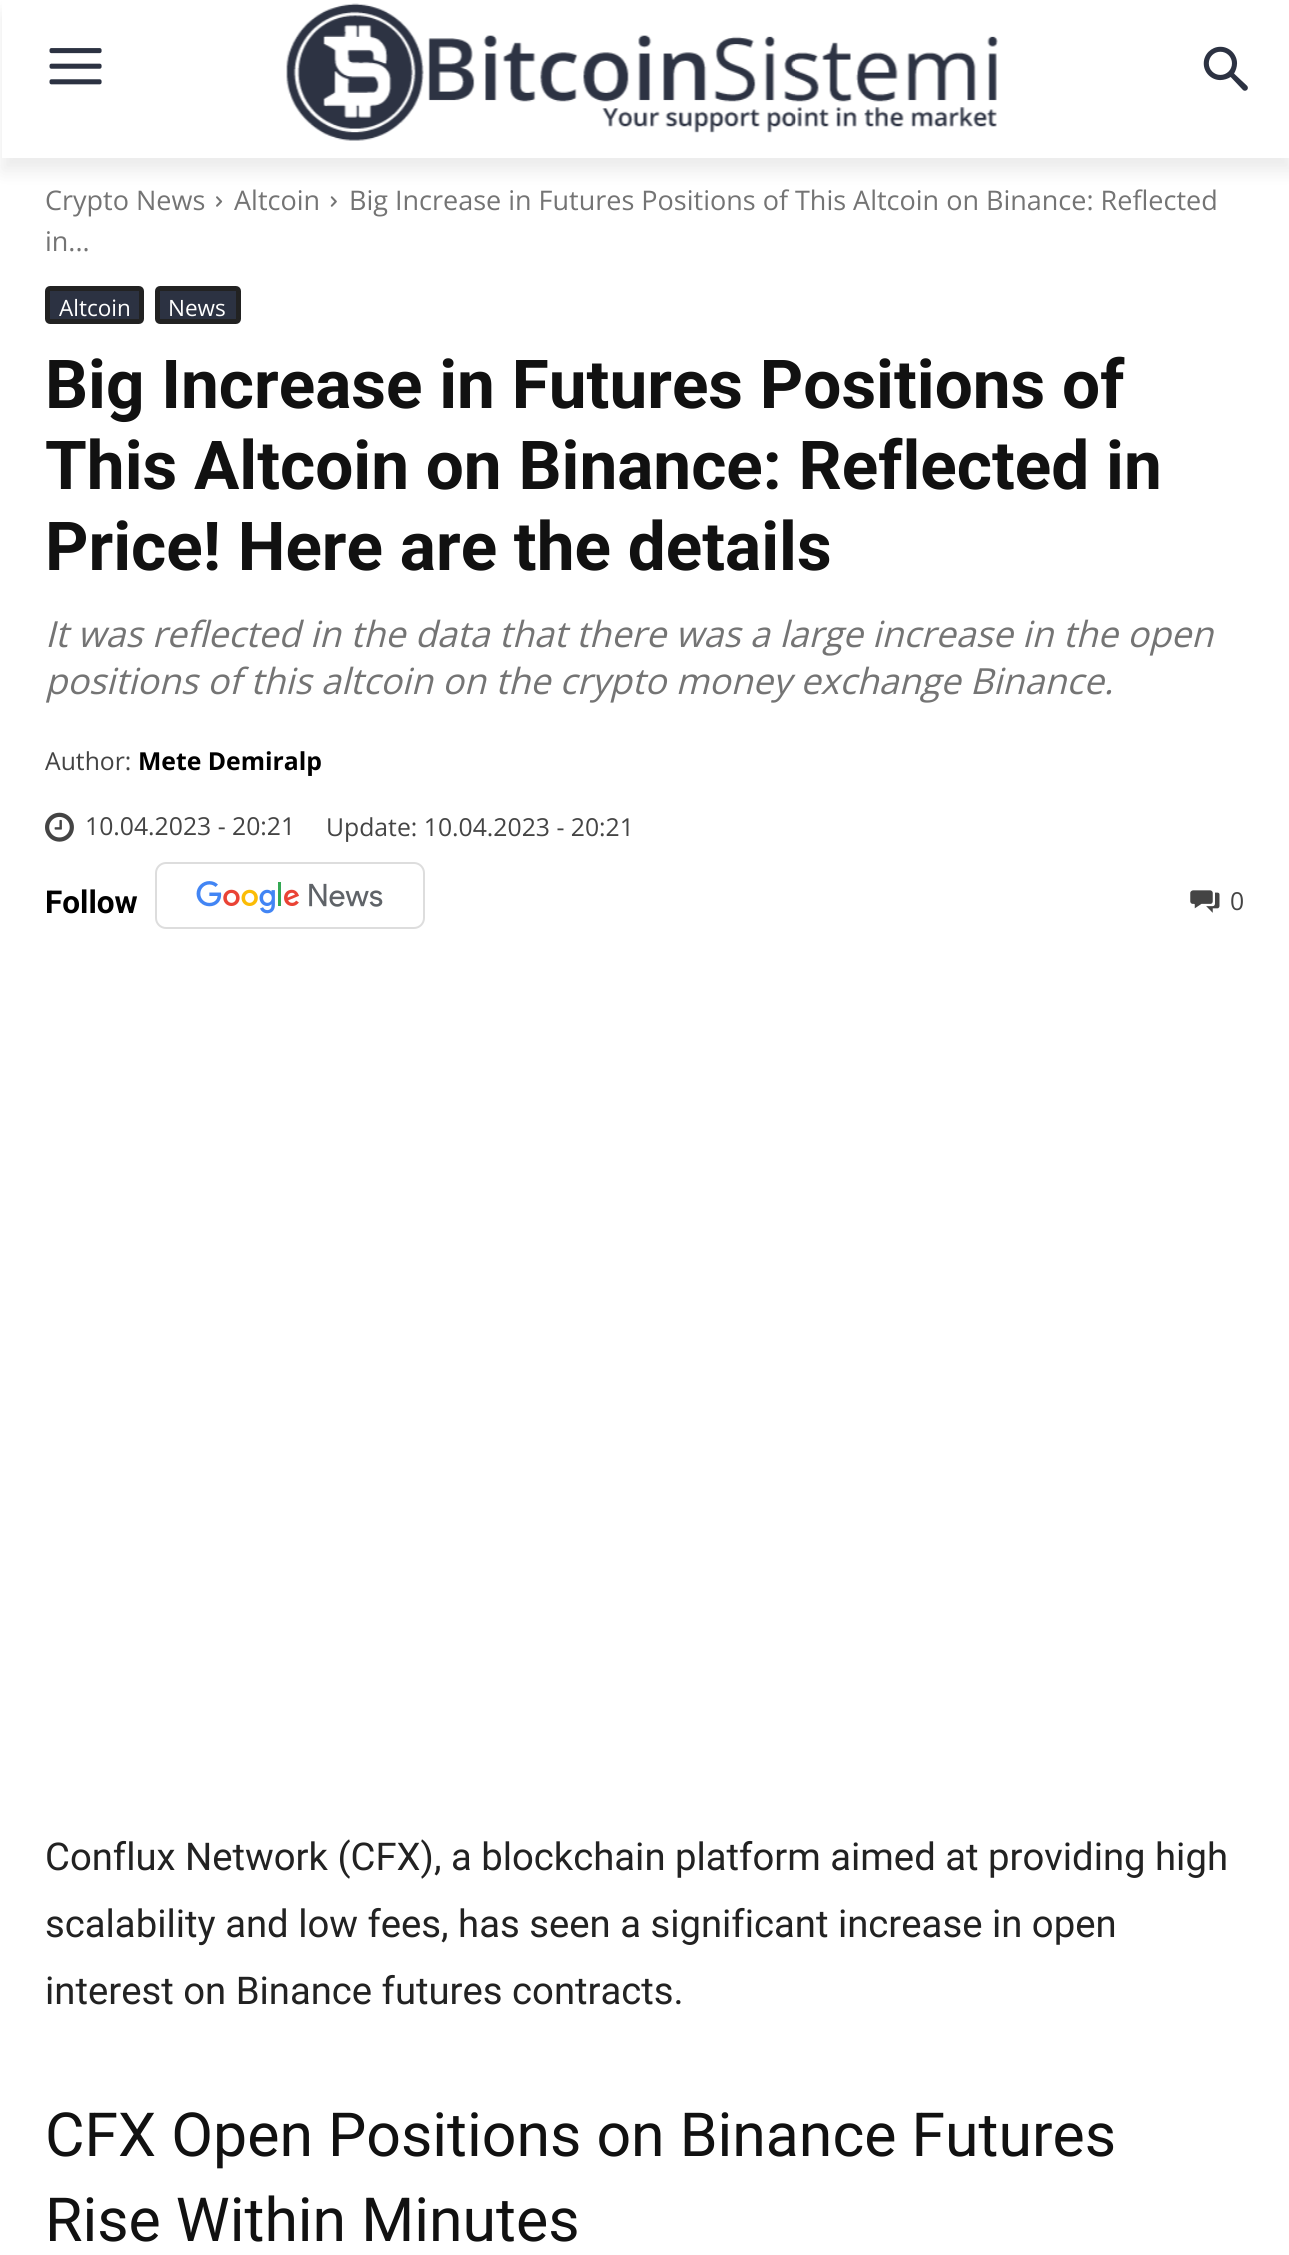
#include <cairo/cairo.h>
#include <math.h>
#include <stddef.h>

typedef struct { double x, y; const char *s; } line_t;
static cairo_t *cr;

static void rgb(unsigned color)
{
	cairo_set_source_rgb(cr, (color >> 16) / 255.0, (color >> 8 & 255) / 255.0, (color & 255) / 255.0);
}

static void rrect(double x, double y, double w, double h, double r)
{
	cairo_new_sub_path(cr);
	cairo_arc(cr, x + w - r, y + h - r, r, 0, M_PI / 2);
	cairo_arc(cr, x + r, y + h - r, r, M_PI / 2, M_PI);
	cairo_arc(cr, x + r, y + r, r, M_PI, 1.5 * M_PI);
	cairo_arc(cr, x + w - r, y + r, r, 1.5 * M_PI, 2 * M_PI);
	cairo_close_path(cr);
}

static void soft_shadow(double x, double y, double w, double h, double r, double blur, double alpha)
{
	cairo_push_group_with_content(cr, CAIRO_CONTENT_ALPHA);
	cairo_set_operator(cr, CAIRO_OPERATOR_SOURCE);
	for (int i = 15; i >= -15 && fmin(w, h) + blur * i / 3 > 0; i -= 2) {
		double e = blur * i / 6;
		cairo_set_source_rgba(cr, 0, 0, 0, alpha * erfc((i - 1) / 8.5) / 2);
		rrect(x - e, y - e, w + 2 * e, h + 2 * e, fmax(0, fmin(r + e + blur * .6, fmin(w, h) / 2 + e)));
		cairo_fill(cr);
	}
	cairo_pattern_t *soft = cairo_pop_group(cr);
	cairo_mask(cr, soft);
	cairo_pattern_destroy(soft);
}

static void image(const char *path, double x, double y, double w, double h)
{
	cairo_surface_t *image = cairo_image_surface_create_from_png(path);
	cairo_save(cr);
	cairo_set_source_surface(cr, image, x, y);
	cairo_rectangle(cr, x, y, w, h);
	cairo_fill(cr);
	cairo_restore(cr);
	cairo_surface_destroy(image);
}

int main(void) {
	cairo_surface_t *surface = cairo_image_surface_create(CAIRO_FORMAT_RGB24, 1289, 2255);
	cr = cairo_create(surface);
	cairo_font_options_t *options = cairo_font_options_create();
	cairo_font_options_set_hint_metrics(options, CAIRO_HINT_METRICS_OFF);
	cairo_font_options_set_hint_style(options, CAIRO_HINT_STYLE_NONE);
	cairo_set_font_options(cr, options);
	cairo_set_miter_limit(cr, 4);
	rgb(0xffffff);
	cairo_paint(cr);
	image("img/1.png", 49, 48, 53, 37);
	image("img/2.png", 286, 3, 712, 138);
	image("img/3.png", 1203, 46, 45, 45);
	image("img/4.png", 216, 196, 7, 11);
	image("img/5.png", 330, 196, 7, 11);
	cairo_save(cr);
	cairo_set_fill_rule(cr, CAIRO_FILL_RULE_EVEN_ODD);
	cairo_new_path(cr);
	cairo_move_to(cr, 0, 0);
	cairo_line_to(cr, 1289, 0);
	cairo_line_to(cr, 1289, 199);
	cairo_line_to(cr, 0, 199);
	cairo_close_path(cr);
	cairo_move_to(cr, 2, 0);
	cairo_line_to(cr, 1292, 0);
	cairo_line_to(cr, 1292, 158);
	cairo_line_to(cr, 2, 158);
	cairo_close_path(cr);
	cairo_clip(cr);
	rgb(0x000000);
	soft_shadow(2, 14, 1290, 157, 0, 9, 0.08);
	cairo_restore(cr);
	rgb(0x2c3242);
	rrect(47.5, 288.5, 94, 33, 2.5);
	cairo_fill_preserve(cr);
	rgb(0x222222);
	cairo_set_line_width(cr, 5);
	cairo_stroke(cr);
	rgb(0x2c3242);
	rrect(157.5, 288.5, 81, 33, 2.5);
	cairo_fill_preserve(cr);
	rgb(0x222222);
	cairo_stroke(cr);
	image("img/6.png", 45, 812, 29, 30);
	rrect(156, 863, 268, 65, 10);
	rgb(0xdddddd);
	cairo_set_line_width(cr, 2);
	cairo_stroke(cr);
	image("img/7.png", 196, 881, 187, 33);
	image("img/8.png", 1190, 890, 30, 23);
	cairo_select_font_face(cr, "Open Sans", CAIRO_FONT_SLANT_NORMAL, CAIRO_FONT_WEIGHT_NORMAL);
	cairo_set_font_size(cr, 27);
	rgb(0x747474);
	{
		static const line_t items[] = {
			{45, 210, "Crypto News"},
			{234, 210, "Altcoin"},
			{349, 210, "Big Increase in Futures Positions of This Altcoin on Binance: Reflected"},
			{45, 251, "in..."},
		};
		for (size_t i = 0; i < sizeof items / sizeof *items; i++) {
			cairo_move_to(cr, items[i].x, items[i].y);
			cairo_show_text(cr, items[i].s);
		}
	}
	cairo_set_font_size(cr, 22.5);
	rgb(0xffffff);
	cairo_move_to(cr, 59, 316);
	cairo_show_text(cr, "Altcoin");
	cairo_move_to(cr, 168, 316);
	cairo_show_text(cr, "News");
	cairo_select_font_face(cr, "Roboto", CAIRO_FONT_SLANT_NORMAL, CAIRO_FONT_WEIGHT_BOLD);
	cairo_set_font_size(cr, 67.5);
	rgb(0x111111);
	{
		static const line_t items[] = {
			{45, 408, "Big Increase in Futures Positions of"},
			{45, 489, "This Altcoin on Binance: Reflected in"},
			{45, 570, "Price! Here are the details"},
		};
		for (size_t i = 0; i < sizeof items / sizeof *items; i++) {
			cairo_move_to(cr, items[i].x, items[i].y);
			cairo_show_text(cr, items[i].s);
		}
	}
	cairo_select_font_face(cr, "Open Sans", CAIRO_FONT_SLANT_ITALIC, CAIRO_FONT_WEIGHT_NORMAL);
	cairo_set_font_size(cr, 36);
	rgb(0x747474);
	cairo_move_to(cr, 45, 647);
	cairo_show_text(cr, "It was reflected in the data that there was a large increase in the open");
	cairo_move_to(cr, 45, 694);
	cairo_show_text(cr, "positions of this altcoin on the crypto money exchange Binance.");
	cairo_select_font_face(cr, "Open Sans", CAIRO_FONT_SLANT_NORMAL, CAIRO_FONT_WEIGHT_NORMAL);
	cairo_set_font_size(cr, 24.75);
	rgb(0x444444);
	cairo_move_to(cr, 45, 770);
	cairo_show_text(cr, "Author:");
	cairo_select_font_face(cr, "Open Sans", CAIRO_FONT_SLANT_NORMAL, CAIRO_FONT_WEIGHT_BOLD);
	rgb(0x000000);
	cairo_move_to(cr, 138, 770);
	cairo_show_text(cr, "Mete Demiralp");
	cairo_select_font_face(cr, "Open Sans", CAIRO_FONT_SLANT_NORMAL, CAIRO_FONT_WEIGHT_NORMAL);
	rgb(0x444444);
	cairo_move_to(cr, 85, 835);
	cairo_show_text(cr, "10.04.2023 - 20:21");
	cairo_move_to(cr, 326, 836);
	cairo_show_text(cr, "Update: 10.04.2023 - 20:21");
	cairo_select_font_face(cr, "Roboto", CAIRO_FONT_SLANT_NORMAL, CAIRO_FONT_WEIGHT_BOLD);
	cairo_set_font_size(cr, 31.5);
	rgb(0x000000);
	cairo_move_to(cr, 45, 913);
	cairo_show_text(cr, "Follow");
	cairo_select_font_face(cr, "Open Sans", CAIRO_FONT_SLANT_NORMAL, CAIRO_FONT_WEIGHT_NORMAL);
	cairo_set_font_size(cr, 24.75);
	rgb(0x444444);
	cairo_move_to(cr, 1230, 910);
	cairo_show_text(cr, "0");
	cairo_select_font_face(cr, "Roboto", CAIRO_FONT_SLANT_NORMAL, CAIRO_FONT_WEIGHT_NORMAL);
	cairo_set_font_size(cr, 38.25);
	rgb(0x222222);
	{
		static const line_t items[] = {
			{45, 1870, "Conflux Network (CFX), a blockchain platform aimed at providing high"},
			{45, 1937, "scalability and low fees, has seen a significant increase in open"},
			{45, 2004, "interest on Binance futures contracts."},
		};
		for (size_t i = 0; i < sizeof items / sizeof *items; i++) {
			cairo_move_to(cr, items[i].x, items[i].y);
			cairo_show_text(cr, items[i].s);
		}
	}
	cairo_set_font_size(cr, 60.75);
	rgb(0x111111);
	cairo_move_to(cr, 45, 2156);
	cairo_show_text(cr, "CFX Open Positions on Binance Futures");
	cairo_move_to(cr, 45, 2241);
	cairo_show_text(cr, "Rise Within Minutes");
	cairo_surface_write_to_png(surface, "page.png");
	cairo_font_options_destroy(options);
	cairo_destroy(cr);
	cairo_surface_destroy(surface);
	return 0;
}
